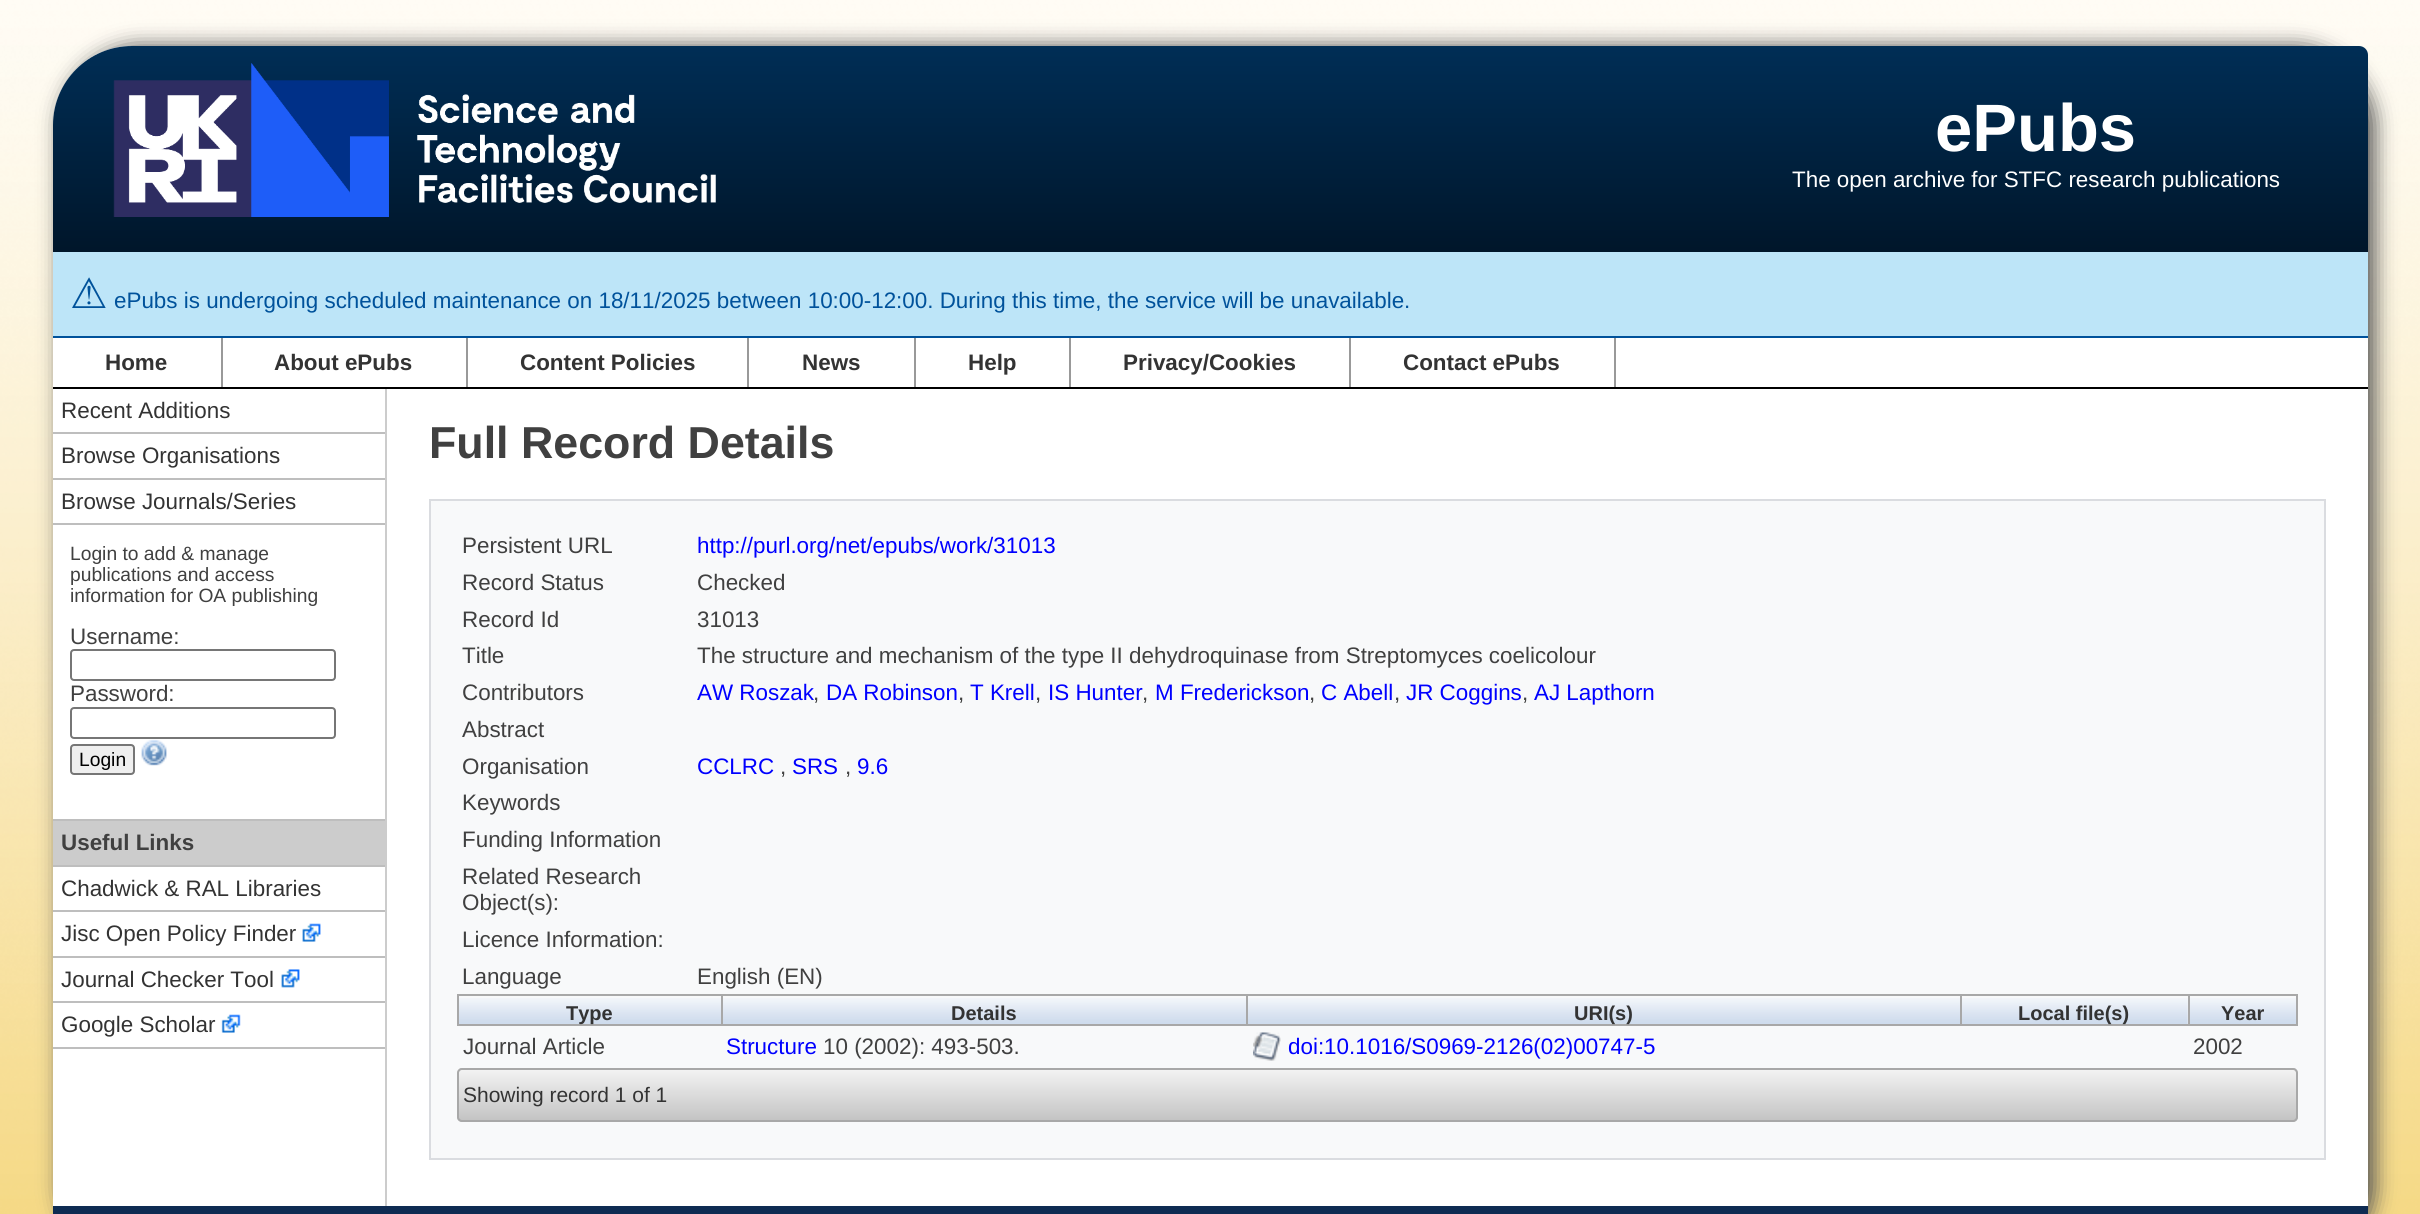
#include <cairo/cairo.h>
#include <math.h>
#include <stddef.h>

typedef struct { double x, y; const char *s; } line_t;
typedef struct { double x, y, w, h; unsigned color; } box_t;
static cairo_t *cr;

static void rgb(unsigned color)
{
	cairo_set_source_rgb(cr, (color >> 16) / 255.0, (color >> 8 & 255) / 255.0, (color & 255) / 255.0);
}

static void rrect(double x, double y, double w, double h, double r)
{
	cairo_new_sub_path(cr);
	cairo_arc(cr, x + w - r, y + h - r, r, 0, M_PI / 2);
	cairo_arc(cr, x + r, y + h - r, r, M_PI / 2, M_PI);
	cairo_arc(cr, x + r, y + r, r, M_PI, 1.5 * M_PI);
	cairo_arc(cr, x + w - r, y + r, r, 1.5 * M_PI, 2 * M_PI);
	cairo_close_path(cr);
}

static void soft_shadow(double x, double y, double w, double h, double r, double blur, double alpha)
{
	cairo_push_group_with_content(cr, CAIRO_CONTENT_ALPHA);
	cairo_set_operator(cr, CAIRO_OPERATOR_SOURCE);
	for (int i = 15; i >= -15 && fmin(w, h) + blur * i / 3 > 0; i -= 2) {
		double e = blur * i / 6;
		cairo_set_source_rgba(cr, 0, 0, 0, alpha * erfc((i - 1) / 8.5) / 2);
		rrect(x - e, y - e, w + 2 * e, h + 2 * e, fmax(0, fmin(r + e + blur * .6, fmin(w, h) / 2 + e)));
		cairo_fill(cr);
	}
	cairo_pattern_t *soft = cairo_pop_group(cr);
	cairo_mask(cr, soft);
	cairo_pattern_destroy(soft);
}

static void image(const char *path, double x, double y, double w, double h)
{
	cairo_surface_t *image = cairo_image_surface_create_from_png(path);
	cairo_save(cr);
	cairo_set_source_surface(cr, image, x, y);
	cairo_rectangle(cr, x, y, w, h);
	cairo_fill(cr);
	cairo_restore(cr);
	cairo_surface_destroy(image);
}

int main(void) {
	cairo_surface_t *surface = cairo_image_surface_create(CAIRO_FORMAT_RGB24, 2420, 1214);
	cr = cairo_create(surface);
	cairo_font_options_t *options = cairo_font_options_create();
	cairo_font_options_set_hint_metrics(options, CAIRO_HINT_METRICS_OFF);
	cairo_font_options_set_hint_style(options, CAIRO_HINT_STYLE_NONE);
	cairo_set_font_options(cr, options);
	cairo_set_miter_limit(cr, 4);
	cairo_pattern_t *gradient;
	rgb(0xffffff);
	cairo_paint(cr);
	image("img/1.png", 0, 0, 2420, 1214);
	rgb(0x555555);
	soft_shadow(60, 46, 2315, 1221, 79, 10.5, 1);
	rgb(0xffffff);
	cairo_new_path(cr);
	cairo_move_to(cr, 132, 46);
	cairo_line_to(cr, 2359, 46);
	cairo_curve_to(cr, 2364, 46, 2368, 50, 2368, 55);
	cairo_line_to(cr, 2368, 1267);
	cairo_line_to(cr, 53, 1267);
	cairo_line_to(cr, 53, 125);
	cairo_curve_to(cr, 53, 81.5, 88.5, 46, 132, 46);
	cairo_close_path(cr);
	cairo_fill(cr);
	gradient = cairo_pattern_create_linear(1210, 45, 1210, 252);
	cairo_pattern_add_color_stop_rgba(gradient, 0, 0, 0.18, 0.337, 1);
	cairo_pattern_add_color_stop_rgba(gradient, 1, 0, 0.086, 0.165, 1);
	cairo_set_source(cr, gradient);
	cairo_pattern_destroy(gradient);
	cairo_new_path(cr);
	cairo_move_to(cr, 132, 46);
	cairo_line_to(cr, 2359, 46);
	cairo_curve_to(cr, 2364, 46, 2368, 50, 2368, 55);
	cairo_line_to(cr, 2368, 252);
	cairo_line_to(cr, 53, 252);
	cairo_line_to(cr, 53, 125);
	cairo_curve_to(cr, 53, 81.5, 88.5, 46, 132, 46);
	cairo_close_path(cr);
	cairo_fill(cr);
	image("img/2.png", 113, 63, 603, 154);
	{
		static const box_t items[] = {
			{53, 252, 2315, 84, 0xbde5f8},
			{53, 336, 2315, 2, 0x00529b},
			{53, 387, 2315, 2, 0x000000},
			{221, 338, 2, 49, 0x999999},
			{466, 338, 2, 49, 0x999999},
			{747, 338, 2, 49, 0x999999},
			{914, 338, 2, 49, 0x999999},
			{1069, 338, 2, 49, 0x999999},
			{1349, 338, 2, 49, 0x999999},
			{1614, 338, 2, 49, 0x999999},
			{385, 389, 2, 817, 0xcccccc},
			{53, 432, 332, 2, 0xbebebe},
			{53, 478, 332, 2, 0xbebebe},
			{53, 523, 332, 2, 0xbebebe},
		};
		for (size_t i = 0; i < sizeof items / sizeof *items; i++) {
			rgb(items[i].color);
			cairo_rectangle(cr, items[i].x, items[i].y, items[i].w, items[i].h);
			cairo_fill(cr);
		}
	}
	rrect(71, 650, 264, 30, 3);
	rgb(0x767676);
	cairo_stroke(cr);
	rrect(71, 708, 264, 30, 3);
	cairo_stroke(cr);
	rgb(0xefefef);
	rrect(71, 745, 63, 29, 3);
	cairo_fill_preserve(cr);
	rgb(0x767676);
	cairo_stroke(cr);
	image("img/3.png", 141, 739, 26, 27);
	{
		static const box_t items[] = {
			{53, 819, 332, 2, 0xbebebe},
			{53, 821, 332, 44, 0xcccccc},
			{53, 865, 332, 2, 0xbebebe},
			{53, 910, 332, 2, 0xbebebe},
			{53, 956, 332, 2, 0xbebebe},
		};
		for (size_t i = 0; i < sizeof items / sizeof *items; i++) {
			rgb(items[i].color);
			cairo_rectangle(cr, items[i].x, items[i].y, items[i].w, items[i].h);
			cairo_fill(cr);
		}
	}
	image("img/4.png", 302, 923, 19, 19);
	cairo_rectangle(cr, 53, 1001, 332, 2);
	cairo_fill(cr);
	image("img/5.png", 281, 969, 19, 19);
	cairo_rectangle(cr, 53, 1047, 332, 2);
	cairo_fill(cr);
	image("img/6.png", 221, 1014, 20, 19);
	rgb(0xf8f9fa);
	cairo_rectangle(cr, 430, 500, 1895, 659);
	cairo_fill_preserve(cr);
	rgb(0xdadce0);
	cairo_stroke(cr);
	image("img/7.png", 459, 998, 262, 26);
	rgb(0xa8a8a8);
	cairo_rectangle(cr, 2188, 994, 110, 2);
	cairo_fill(cr);
	image("img/10.png", 1962, 998, 226, 26);
	image("img/11.png", 2187, 998, 109, 26);
	{
		static const box_t items[] = {
			{2296, 994, 2, 32, 0xa8a8a8},
			{2188, 1024, 110, 2, 0xa8a8a8},
			{2188, 994, 2, 32, 0xa8a8a8},
			{1960, 994, 229, 2, 0xa8a8a8},
			{1960, 1024, 229, 2, 0xa8a8a8},
			{1960, 994, 2, 32, 0xa8a8a8},
			{1246, 994, 716, 2, 0xa8a8a8},
			{1246, 1024, 716, 2, 0xa8a8a8},
			{1246, 994, 2, 32, 0xa8a8a8},
			{721, 994, 527, 2, 0xa8a8a8},
			{721, 1024, 527, 2, 0xa8a8a8},
			{721, 994, 2, 32, 0xa8a8a8},
			{457, 994, 266, 2, 0xa8a8a8},
			{457, 1024, 266, 2, 0xa8a8a8},
			{457, 994, 2, 32, 0xa8a8a8},
		};
		for (size_t i = 0; i < sizeof items / sizeof *items; i++) {
			rgb(items[i].color);
			cairo_rectangle(cr, items[i].x, items[i].y, items[i].w, items[i].h);
			cairo_fill(cr);
		}
	}
	image("img/8.png", 723, 998, 523, 26);
	image("img/9.png", 1248, 998, 712, 26);
	image("img/12.png", 1253, 1032, 28, 29);
	rgb(0xc4c4c4);
	rrect(457, 1068, 1841, 54, 5);
	cairo_fill(cr);
	cairo_save(cr);
	rrect(457, 1068, 1841, 54, 5);
	cairo_clip(cr);
	gradient = cairo_pattern_create_linear(459, 1069, 459, 1120);
	cairo_pattern_add_color_stop_rgba(gradient, 0, 1, 1, 1, 0.8);
	cairo_pattern_add_color_stop_rgba(gradient, 1, 1, 1, 1, 0);
	cairo_set_source(cr, gradient);
	cairo_pattern_destroy(gradient);
	cairo_rectangle(cr, 457, 1069, 1841, 50);
	cairo_fill(cr);
	cairo_restore(cr);
	rrect(458, 1069, 1839, 52, 4);
	rgb(0xa8a8a8);
	cairo_stroke(cr);
	rgb(0x0e2b52);
	cairo_rectangle(cr, 53, 1206, 2315, 8);
	cairo_fill(cr);
	cairo_select_font_face(cr, "Liberation Sans", CAIRO_FONT_SLANT_NORMAL, CAIRO_FONT_WEIGHT_BOLD);
	cairo_set_font_size(cr, 67);
	rgb(0xffffff);
	cairo_move_to(cr, 1935, 151);
	cairo_show_text(cr, "ePubs");
	cairo_select_font_face(cr, "Liberation Sans", CAIRO_FONT_SLANT_NORMAL, CAIRO_FONT_WEIGHT_NORMAL);
	cairo_set_font_size(cr, 22.4);
	cairo_move_to(cr, 1792, 187);
	cairo_show_text(cr, "The open archive for STFC research publications");
	cairo_select_font_face(cr, "DejaVu Sans", CAIRO_FONT_SLANT_NORMAL, CAIRO_FONT_WEIGHT_NORMAL);
	cairo_set_font_size(cr, 42);
	rgb(0x00529b);
	cairo_move_to(cr, 70, 308);
	cairo_show_text(cr, "⚠");
	cairo_select_font_face(cr, "Liberation Sans", CAIRO_FONT_SLANT_NORMAL, CAIRO_FONT_WEIGHT_NORMAL);
	cairo_set_font_size(cr, 22.4);
	cairo_move_to(cr, 114, 308);
	cairo_show_text(cr, "ePubs is undergoing scheduled maintenance on 18/11/2025 between 10:00-12:00. During this time, the service will be unavailable.");
	cairo_select_font_face(cr, "Liberation Sans", CAIRO_FONT_SLANT_NORMAL, CAIRO_FONT_WEIGHT_BOLD);
	rgb(0x333333);
	{
		static const line_t items[] = {
			{105, 370, "Home"},
			{274, 370, "About ePubs"},
			{520, 370, "Content Policies"},
			{802, 370, "News"},
			{968, 370, "Help"},
			{1123, 370, "Privacy/Cookies"},
			{1403, 370, "Contact ePubs"},
		};
		for (size_t i = 0; i < sizeof items / sizeof *items; i++) {
			cairo_move_to(cr, items[i].x, items[i].y);
			cairo_show_text(cr, items[i].s);
		}
	}
	cairo_select_font_face(cr, "Liberation Sans", CAIRO_FONT_SLANT_NORMAL, CAIRO_FONT_WEIGHT_NORMAL);
	{
		static const line_t items[] = {
			{61, 418, "Recent Additions"},
			{61, 463, "Browse Organisations"},
			{61, 509, "Browse Journals/Series"},
		};
		for (size_t i = 0; i < sizeof items / sizeof *items; i++) {
			cairo_move_to(cr, items[i].x, items[i].y);
			cairo_show_text(cr, items[i].s);
		}
	}
	cairo_set_font_size(cr, 19.25);
	rgb(0x404040);
	{
		static const line_t items[] = {
			{70, 560, "Login to add & manage"},
			{70, 581, "publications and access"},
			{70, 602, "information for OA publishing"},
		};
		for (size_t i = 0; i < sizeof items / sizeof *items; i++) {
			cairo_move_to(cr, items[i].x, items[i].y);
			cairo_show_text(cr, items[i].s);
		}
	}
	cairo_set_font_size(cr, 22.4);
	cairo_move_to(cr, 70, 644);
	cairo_show_text(cr, "Username:");
	cairo_move_to(cr, 70, 701);
	cairo_show_text(cr, "Password:");
	cairo_set_font_size(cr, 19.25);
	rgb(0x000000);
	cairo_move_to(cr, 79, 766);
	cairo_show_text(cr, "Login");
	cairo_select_font_face(cr, "Liberation Sans", CAIRO_FONT_SLANT_NORMAL, CAIRO_FONT_WEIGHT_BOLD);
	cairo_set_font_size(cr, 22.4);
	rgb(0x404040);
	cairo_move_to(cr, 61, 850);
	cairo_show_text(cr, "Useful Links");
	cairo_select_font_face(cr, "Liberation Sans", CAIRO_FONT_SLANT_NORMAL, CAIRO_FONT_WEIGHT_NORMAL);
	rgb(0x333333);
	{
		static const line_t items[] = {
			{61, 896, "Chadwick & RAL Libraries"},
			{61, 941, "Jisc Open Policy Finder"},
			{61, 987, "Journal Checker Tool"},
			{61, 1032, "Google Scholar"},
		};
		for (size_t i = 0; i < sizeof items / sizeof *items; i++) {
			cairo_move_to(cr, items[i].x, items[i].y);
			cairo_show_text(cr, items[i].s);
		}
	}
	cairo_select_font_face(cr, "Liberation Sans", CAIRO_FONT_SLANT_NORMAL, CAIRO_FONT_WEIGHT_BOLD);
	cairo_set_font_size(cr, 44.75);
	rgb(0x404040);
	cairo_move_to(cr, 429, 458);
	cairo_show_text(cr, "Full Record Details");
	cairo_select_font_face(cr, "Liberation Sans", CAIRO_FONT_SLANT_NORMAL, CAIRO_FONT_WEIGHT_NORMAL);
	cairo_set_font_size(cr, 22.4);
	cairo_move_to(cr, 462, 553);
	cairo_show_text(cr, "Persistent URL");
	rgb(0x0000ff);
	cairo_move_to(cr, 697, 553);
	cairo_show_text(cr, "http://purl.org/net/epubs/work/31013");
	rgb(0x404040);
	{
		static const line_t items[] = {
			{462, 590, "Record Status"},
			{697, 590, "Checked"},
			{462, 627, "Record Id"},
			{697, 627, "31013"},
			{462, 663, "Title"},
			{697, 663, "The structure and mechanism of the type II dehydroquinase from Streptomyces coelicolour"},
			{462, 700, "Contributors"},
		};
		for (size_t i = 0; i < sizeof items / sizeof *items; i++) {
			cairo_move_to(cr, items[i].x, items[i].y);
			cairo_show_text(cr, items[i].s);
		}
	}
	rgb(0x0000ff);
	cairo_move_to(cr, 697, 700);
	cairo_show_text(cr, "AW Roszak");
	rgb(0x404040);
	cairo_move_to(cr, 813, 700);
	cairo_show_text(cr, ",");
	rgb(0x0000ff);
	cairo_move_to(cr, 826, 700);
	cairo_show_text(cr, "DA Robinson");
	rgb(0x404040);
	cairo_move_to(cr, 958, 700);
	cairo_show_text(cr, ",");
	rgb(0x0000ff);
	cairo_move_to(cr, 970, 700);
	cairo_show_text(cr, "T Krell");
	rgb(0x404040);
	cairo_move_to(cr, 1035, 700);
	cairo_show_text(cr, ",");
	rgb(0x0000ff);
	cairo_move_to(cr, 1048, 700);
	cairo_show_text(cr, "IS Hunter");
	rgb(0x404040);
	cairo_move_to(cr, 1142, 700);
	cairo_show_text(cr, ",");
	rgb(0x0000ff);
	cairo_move_to(cr, 1155, 700);
	cairo_show_text(cr, "M Frederickson");
	rgb(0x404040);
	cairo_move_to(cr, 1309, 700);
	cairo_show_text(cr, ",");
	rgb(0x0000ff);
	cairo_move_to(cr, 1321, 700);
	cairo_show_text(cr, "C Abell");
	rgb(0x404040);
	cairo_move_to(cr, 1394, 700);
	cairo_show_text(cr, ",");
	rgb(0x0000ff);
	cairo_move_to(cr, 1406, 700);
	cairo_show_text(cr, "JR Coggins");
	rgb(0x404040);
	cairo_move_to(cr, 1522, 700);
	cairo_show_text(cr, ",");
	rgb(0x0000ff);
	cairo_move_to(cr, 1534, 700);
	cairo_show_text(cr, "AJ Lapthorn");
	rgb(0x404040);
	cairo_move_to(cr, 462, 737);
	cairo_show_text(cr, "Abstract");
	cairo_move_to(cr, 462, 774);
	cairo_show_text(cr, "Organisation");
	rgb(0x0000ff);
	cairo_move_to(cr, 697, 774);
	cairo_show_text(cr, "CCLRC");
	rgb(0x404040);
	cairo_move_to(cr, 780, 774);
	cairo_show_text(cr, ",");
	rgb(0x0000ff);
	cairo_move_to(cr, 792, 774);
	cairo_show_text(cr, "SRS");
	rgb(0x404040);
	cairo_move_to(cr, 845, 774);
	cairo_show_text(cr, ",");
	rgb(0x0000ff);
	cairo_move_to(cr, 857, 774);
	cairo_show_text(cr, "9.6");
	rgb(0x404040);
	{
		static const line_t items[] = {
			{462, 810, "Keywords"},
			{462, 847, "Funding Information"},
			{462, 884, "Related Research"},
			{462, 910, "Object(s):"},
			{462, 947, "Licence Information:"},
			{462, 984, "Language"},
			{697, 984, "English (EN)"},
		};
		for (size_t i = 0; i < sizeof items / sizeof *items; i++) {
			cairo_move_to(cr, items[i].x, items[i].y);
			cairo_show_text(cr, items[i].s);
		}
	}
	cairo_select_font_face(cr, "Liberation Sans", CAIRO_FONT_SLANT_NORMAL, CAIRO_FONT_WEIGHT_BOLD);
	cairo_set_font_size(cr, 20);
	rgb(0x333333);
	{
		static const line_t items[] = {
			{566, 1020, "Type"},
			{951, 1020, "Details"},
			{1574, 1020, "URI(s)"},
			{2018, 1020, "Local file(s)"},
			{2221, 1020, "Year"},
		};
		for (size_t i = 0; i < sizeof items / sizeof *items; i++) {
			cairo_move_to(cr, items[i].x, items[i].y);
			cairo_show_text(cr, items[i].s);
		}
	}
	cairo_select_font_face(cr, "Liberation Sans", CAIRO_FONT_SLANT_NORMAL, CAIRO_FONT_WEIGHT_NORMAL);
	cairo_set_font_size(cr, 22.4);
	rgb(0x404040);
	cairo_move_to(cr, 463, 1054);
	cairo_show_text(cr, "Journal Article");
	rgb(0x0000ff);
	cairo_move_to(cr, 726, 1054);
	cairo_show_text(cr, "Structure");
	rgb(0x404040);
	cairo_move_to(cr, 823, 1054);
	cairo_show_text(cr, "10 (2002): 493-503.");
	rgb(0x0000ff);
	cairo_move_to(cr, 1288, 1054);
	cairo_show_text(cr, "doi:10.1016/S0969-2126(02)00747-5");
	rgb(0x404040);
	cairo_move_to(cr, 2193, 1054);
	cairo_show_text(cr, "2002");
	cairo_set_font_size(cr, 21);
	rgb(0x333333);
	cairo_move_to(cr, 463, 1102);
	cairo_show_text(cr, "Showing record 1 of 1");
	cairo_surface_write_to_png(surface, "page.png");
	cairo_font_options_destroy(options);
	cairo_destroy(cr);
	cairo_surface_destroy(surface);
	return 0;
}
